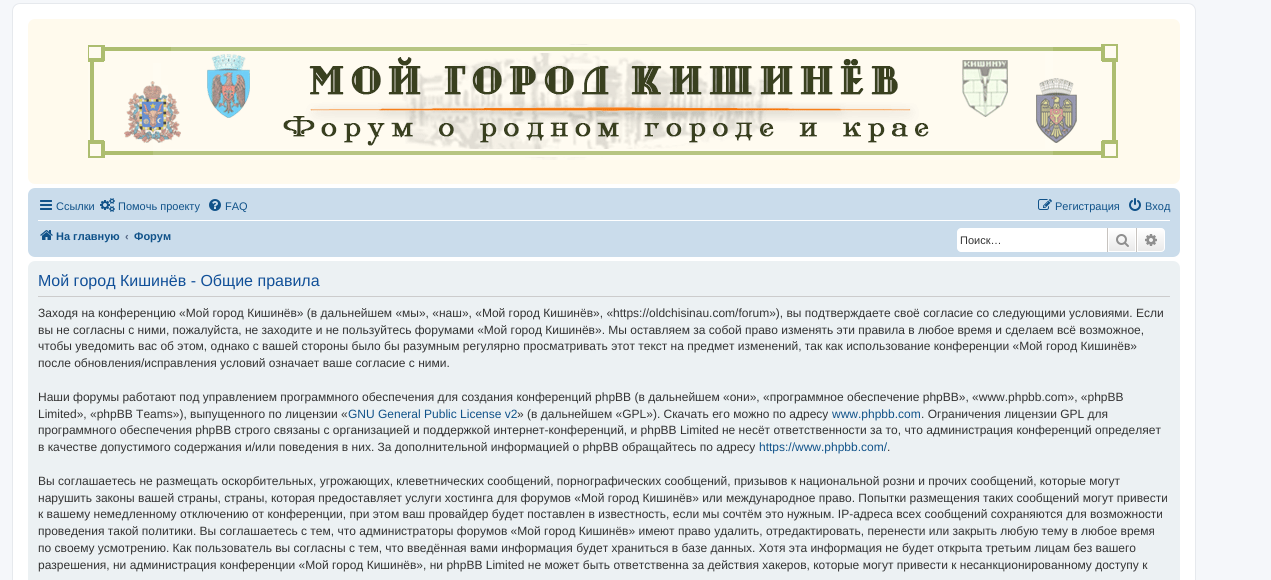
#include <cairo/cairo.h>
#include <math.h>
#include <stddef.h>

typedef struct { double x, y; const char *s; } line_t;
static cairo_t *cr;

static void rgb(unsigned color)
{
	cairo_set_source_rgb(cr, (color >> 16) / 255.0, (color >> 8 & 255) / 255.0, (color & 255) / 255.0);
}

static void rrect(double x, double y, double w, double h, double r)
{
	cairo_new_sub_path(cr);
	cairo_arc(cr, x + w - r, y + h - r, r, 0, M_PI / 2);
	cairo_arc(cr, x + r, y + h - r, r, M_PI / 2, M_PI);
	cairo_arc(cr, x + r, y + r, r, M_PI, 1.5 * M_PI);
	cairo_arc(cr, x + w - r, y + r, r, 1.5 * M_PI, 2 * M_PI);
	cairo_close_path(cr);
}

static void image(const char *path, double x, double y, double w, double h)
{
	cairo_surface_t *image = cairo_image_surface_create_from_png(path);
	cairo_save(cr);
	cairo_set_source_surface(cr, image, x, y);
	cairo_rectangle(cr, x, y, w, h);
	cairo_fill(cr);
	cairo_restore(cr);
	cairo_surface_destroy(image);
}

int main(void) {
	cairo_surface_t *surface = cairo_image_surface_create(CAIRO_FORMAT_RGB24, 1271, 580);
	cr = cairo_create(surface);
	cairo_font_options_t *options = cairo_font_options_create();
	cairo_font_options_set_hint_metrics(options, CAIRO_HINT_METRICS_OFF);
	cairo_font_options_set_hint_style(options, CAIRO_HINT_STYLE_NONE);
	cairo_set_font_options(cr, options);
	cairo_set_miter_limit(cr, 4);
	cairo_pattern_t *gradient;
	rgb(0xf5f7fa);
	cairo_paint(cr);
	rgb(0xffffff);
	rrect(12.5, 3.5, 1183, 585, 7.5);
	cairo_fill_preserve(cr);
	rgb(0xe6e9ed);
	cairo_set_line_width(cr, 1);
	cairo_stroke(cr);
	rgb(0xfffaed);
	rrect(28, 19, 1152, 165, 7);
	cairo_fill(cr);
	image("img/1.png", 88, 44, 1030, 116);
	rgb(0xcadceb);
	rrect(28, 188, 1152, 69, 7);
	cairo_fill(cr);
	image("img/2.png", 40, 200, 12, 10);
	image("img/3.png", 100, 198, 15, 14);
	image("img/4.png", 209, 199, 12, 12);
	image("img/5.png", 1038, 199, 14, 11);
	image("img/6.png", 1129, 198, 12, 13);
	rgb(0xffffff);
	cairo_rectangle(cr, 38, 220, 1132, 1);
	cairo_fill(cr);
	image("img/7.png", 40, 230, 13, 10);
	cairo_new_path(cr);
	cairo_move_to(cr, 961, 228);
	cairo_line_to(cr, 1107, 228);
	cairo_line_to(cr, 1107, 252);
	cairo_line_to(cr, 961, 252);
	cairo_curve_to(cr, 959, 252, 957, 250, 957, 248);
	cairo_line_to(cr, 957, 232);
	cairo_curve_to(cr, 957, 230, 959, 228, 961, 228);
	cairo_close_path(cr);
	cairo_fill(cr);
	gradient = cairo_pattern_create_linear(1122, 228, 1122, 252);
	cairo_pattern_add_color_stop_rgba(gradient, 0, 1, 1, 1, 1);
	cairo_pattern_add_color_stop_rgba(gradient, 1, 0.914, 0.914, 0.914, 1);
	cairo_set_source(cr, gradient);
	cairo_pattern_destroy(gradient);
	cairo_rectangle(cr, 1109, 229, 26, 22);
	cairo_fill(cr);
	cairo_rectangle(cr, 1108.5, 228.5, 27, 23);
	rgb(0xffffff);
	cairo_stroke(cr);
	rgb(0xc7c3bf);
	cairo_rectangle(cr, 1136, 228, 1, 24);
	cairo_fill(cr);
	cairo_rectangle(cr, 1107, 228, 1, 24);
	cairo_fill(cr);
	image("img/8.png", 1116, 234, 13, 13);
	gradient = cairo_pattern_create_linear(1151, 228, 1151, 252);
	cairo_pattern_add_color_stop_rgba(gradient, 0, 1, 1, 1, 1);
	cairo_pattern_add_color_stop_rgba(gradient, 1, 0.914, 0.914, 0.914, 1);
	cairo_set_source(cr, gradient);
	cairo_pattern_destroy(gradient);
	cairo_new_path(cr);
	cairo_move_to(cr, 1137.5, 228.5);
	cairo_line_to(cr, 1161, 228.5);
	cairo_curve_to(cr, 1163, 228.5, 1164.5, 230, 1164.5, 232);
	cairo_line_to(cr, 1164.5, 248);
	cairo_curve_to(cr, 1164.5, 250, 1163, 251.5, 1161, 251.5);
	cairo_line_to(cr, 1137.5, 251.5);
	cairo_close_path(cr);
	cairo_fill_preserve(cr);
	rgb(0xffffff);
	cairo_stroke(cr);
	image("img/9.png", 1145, 234, 12, 12);
	rgb(0xecf1f3);
	rrect(28, 261, 1152, 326, 7);
	cairo_fill(cr);
	rgb(0xcccccc);
	cairo_rectangle(cr, 38, 296, 1132, 1);
	cairo_fill(cr);
	cairo_select_font_face(cr, "Liberation Sans", CAIRO_FONT_SLANT_NORMAL, CAIRO_FONT_WEIGHT_NORMAL);
	cairo_set_font_size(cr, 11);
	rgb(0x105289);
	{
		static const line_t items[] = {
			{56, 210, "Ссылки"},
			{118, 210, "Помочь проекту"},
			{225, 210, "FAQ"},
			{1055, 210, "Регистрация"},
			{1145, 210, "Вход"},
		};
		for (size_t i = 0; i < sizeof items / sizeof *items; i++) {
			cairo_move_to(cr, items[i].x, items[i].y);
			cairo_show_text(cr, items[i].s);
		}
	}
	cairo_select_font_face(cr, "Liberation Sans", CAIRO_FONT_SLANT_NORMAL, CAIRO_FONT_WEIGHT_BOLD);
	cairo_move_to(cr, 56, 240);
	cairo_show_text(cr, "На главную");
	rgb(0x536482);
	cairo_move_to(cr, 125, 240);
	cairo_show_text(cr, "‹");
	rgb(0x105289);
	cairo_move_to(cr, 134, 240);
	cairo_show_text(cr, "Форум");
	cairo_select_font_face(cr, "Liberation Sans", CAIRO_FONT_SLANT_NORMAL, CAIRO_FONT_WEIGHT_NORMAL);
	rgb(0x333333);
	cairo_move_to(cr, 960, 244);
	cairo_show_text(cr, "Поиск…");
	cairo_set_font_size(cr, 16);
	rgb(0x115098);
	cairo_move_to(cr, 38, 286);
	cairo_show_text(cr, "Мой город Кишинёв - Общие правила");
	cairo_set_font_size(cr, 12);
	rgb(0x333333);
	{
		static const line_t items[] = {
			{38, 317, "Заходя на конференцию «Мой город Кишинёв» (в дальнейшем «мы», «наш», «Мой город Кишинёв», «https://oldchisinau.com/forum»), вы подтверждаете своё согласие со следующими условиями. Если"},
			{38, 334, "вы не согласны с ними, пожалуйста, не заходите и не пользуйтесь форумами «Мой город Кишинёв». Мы оставляем за собой право изменять эти правила в любое время и сделаем всё возможное,"},
			{38, 350, "чтобы уведомить вас об этом, однако с вашей стороны было бы разумным регулярно просматривать этот текст на предмет изменений, так как использование конференции «Мой город Кишинёв»"},
			{38, 367, "после обновления/исправления условий означает ваше согласие с ними."},
			{38, 401, "Наши форумы работают под управлением программного обеспечения для создания конференций phpBB (в дальнейшем «они», «программное обеспечение phpBB», «www.phpbb.com», «phpBB"},
			{38, 418, "Limited», «phpBB Teams»), выпущенного по лицензии «"},
		};
		for (size_t i = 0; i < sizeof items / sizeof *items; i++) {
			cairo_move_to(cr, items[i].x, items[i].y);
			cairo_show_text(cr, items[i].s);
		}
	}
	rgb(0x105289);
	cairo_move_to(cr, 348, 418);
	cairo_show_text(cr, "GNU General Public License v2");
	rgb(0x333333);
	cairo_move_to(cr, 517, 418);
	cairo_show_text(cr, "» (в дальнейшем «GPL»). Скачать его можно по адресу");
	rgb(0x105289);
	cairo_move_to(cr, 832, 418);
	cairo_show_text(cr, "www.phpbb.com");
	rgb(0x333333);
	{
		static const line_t items[] = {
			{921, 418, ". Ограничения лицензии GPL для"},
			{38, 434, "программного обеспечения phpBB строго связаны с организацией и поддержкой интернет-конференций, и phpBB Limited не несёт ответственности за то, что администрация конференций определяет"},
			{38, 451, "в качестве допустимого содержания и/или поведения в них. За дополнительной информацией о phpBB обращайтесь по адресу"},
		};
		for (size_t i = 0; i < sizeof items / sizeof *items; i++) {
			cairo_move_to(cr, items[i].x, items[i].y);
			cairo_show_text(cr, items[i].s);
		}
	}
	rgb(0x105289);
	cairo_move_to(cr, 759, 451);
	cairo_show_text(cr, "https://www.phpbb.com/");
	rgb(0x333333);
	{
		static const line_t items[] = {
			{887, 451, "."},
			{38, 485, "Вы соглашаетесь не размещать оскорбительных, угрожающих, клеветнических сообщений, порнографических сообщений, призывов к национальной розни и прочих сообщений, которые могут"},
			{38, 502, "нарушить законы вашей страны, страны, которая предоставляет услуги хостинга для форумов «Мой город Кишинёв» или международное право. Попытки размещения таких сообщений могут привести"},
			{38, 518, "к вашему немедленному отключению от конференции, при этом ваш провайдер будет поставлен в известность, если мы сочтём это нужным. IP-адреса всех сообщений сохраняются для возможности"},
			{38, 535, "проведения такой политики. Вы соглашаетесь с тем, что администраторы форумов «Мой город Кишинёв» имеют право удалить, отредактировать, перенести или закрыть любую тему в любое время"},
			{38, 552, "по своему усмотрению. Как пользователь вы согласны с тем, что введённая вами информация будет храниться в базе данных. Хотя эта информация не будет открыта третьим лицам без вашего"},
			{38, 569, "разрешения, ни администрация конференции «Мой город Кишинёв», ни phpBB Limited не может быть ответственна за действия хакеров, которые могут привести к несанкционированному доступу к"},
		};
		for (size_t i = 0; i < sizeof items / sizeof *items; i++) {
			cairo_move_to(cr, items[i].x, items[i].y);
			cairo_show_text(cr, items[i].s);
		}
	}
	cairo_surface_write_to_png(surface, "page.png");
	cairo_font_options_destroy(options);
	cairo_destroy(cr);
	cairo_surface_destroy(surface);
	return 0;
}
